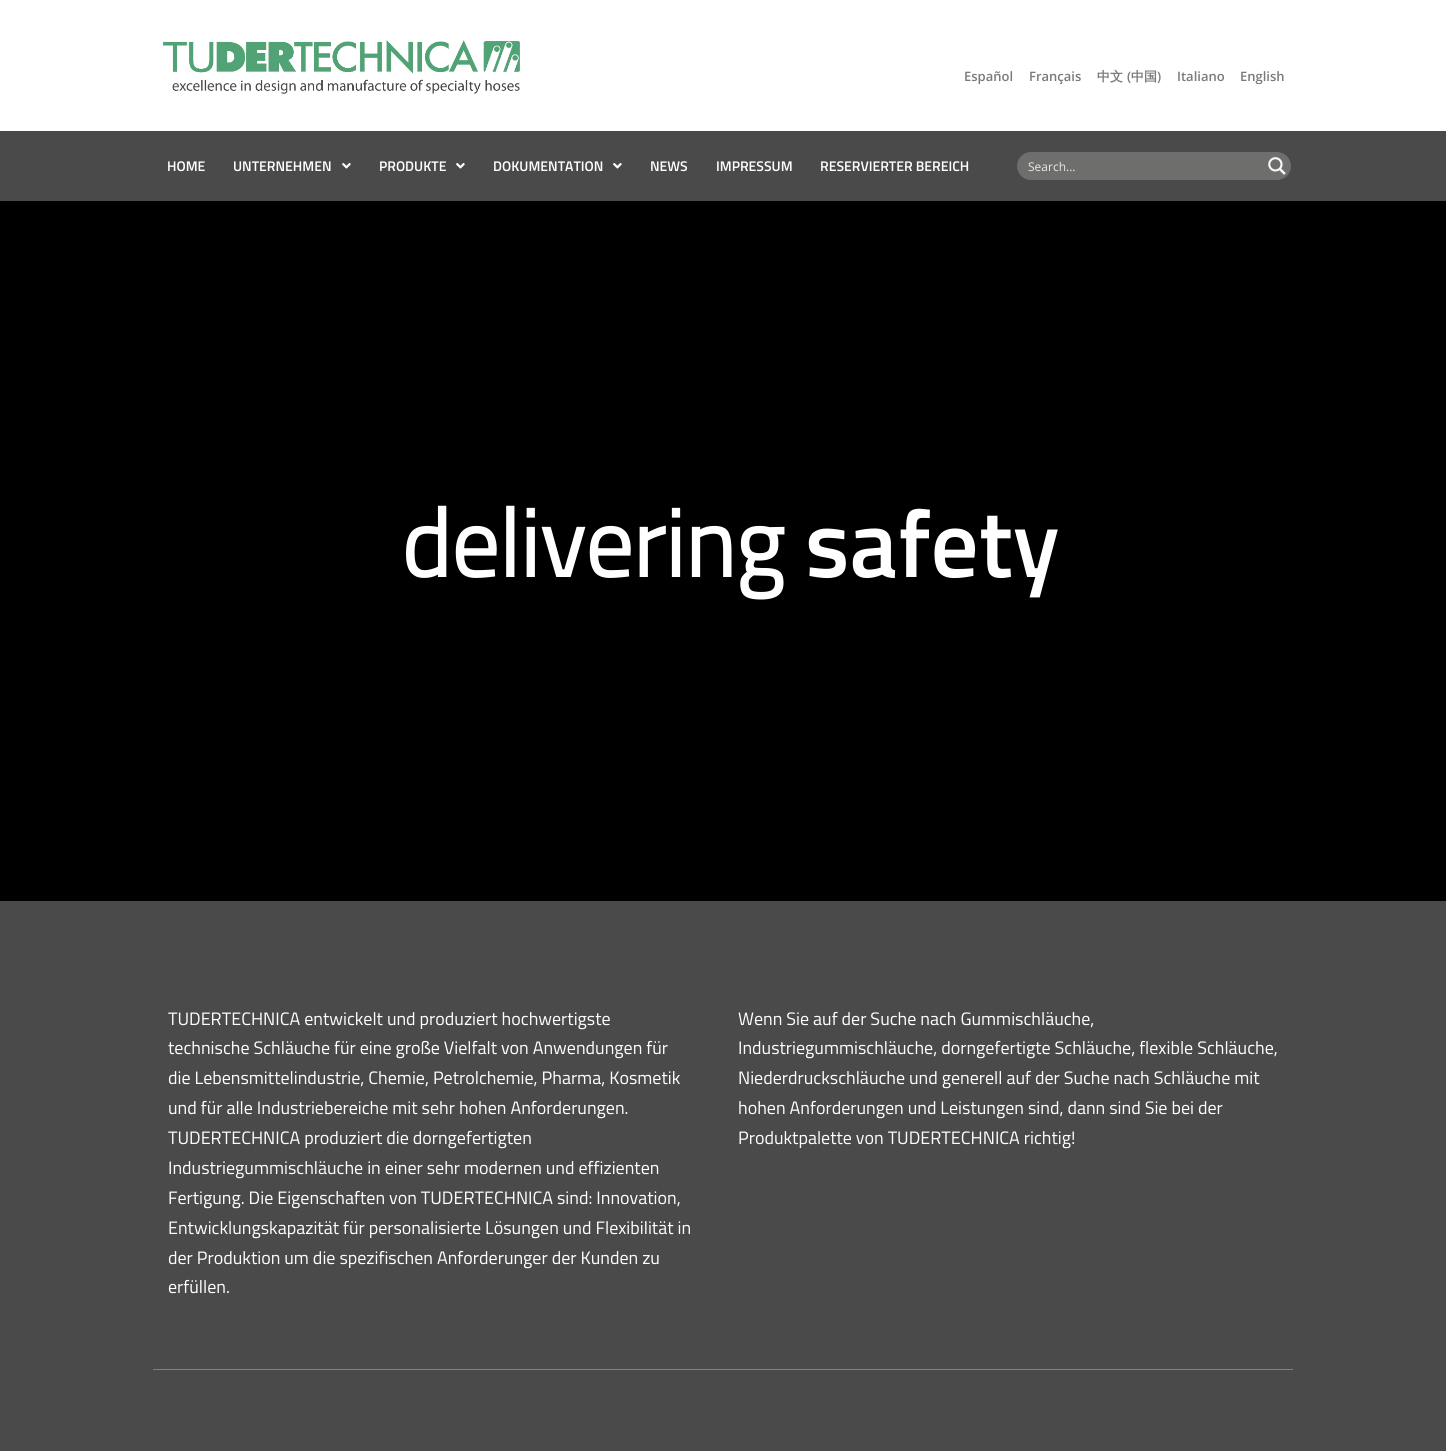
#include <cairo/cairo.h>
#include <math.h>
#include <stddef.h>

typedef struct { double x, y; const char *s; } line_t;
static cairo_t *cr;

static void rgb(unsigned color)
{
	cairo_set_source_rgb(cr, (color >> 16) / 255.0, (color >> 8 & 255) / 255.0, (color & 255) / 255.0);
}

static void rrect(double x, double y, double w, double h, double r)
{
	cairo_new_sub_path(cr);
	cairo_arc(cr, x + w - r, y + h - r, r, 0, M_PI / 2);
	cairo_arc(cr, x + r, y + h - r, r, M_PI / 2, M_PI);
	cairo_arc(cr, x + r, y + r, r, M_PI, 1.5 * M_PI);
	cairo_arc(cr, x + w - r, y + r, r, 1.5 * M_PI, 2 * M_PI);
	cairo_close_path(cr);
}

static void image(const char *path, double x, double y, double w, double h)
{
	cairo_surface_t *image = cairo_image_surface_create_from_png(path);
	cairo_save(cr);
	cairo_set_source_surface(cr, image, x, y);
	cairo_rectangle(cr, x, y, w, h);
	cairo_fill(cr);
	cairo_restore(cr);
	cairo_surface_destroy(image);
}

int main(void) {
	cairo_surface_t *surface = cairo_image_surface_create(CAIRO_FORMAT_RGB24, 1446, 1451);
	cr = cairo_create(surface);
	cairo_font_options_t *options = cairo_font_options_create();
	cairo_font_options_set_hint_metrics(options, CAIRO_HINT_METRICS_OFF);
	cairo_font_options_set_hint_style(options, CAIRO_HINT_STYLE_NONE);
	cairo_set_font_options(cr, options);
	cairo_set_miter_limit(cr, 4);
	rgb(0x4a4a4a);
	cairo_paint(cr);
	rgb(0xffffff);
	cairo_rectangle(cr, 0, 0, 1446, 131);
	cairo_fill(cr);
	image("img/1.png", 163, 40, 357, 54);
	image("img/2.png", 342, 163, 9, 6);
	image("img/2.png", 456, 163, 9, 6);
	image("img/2.png", 613, 163, 9, 6);
	rgb(0x6e6e6d);
	rrect(1017, 152, 274, 28, 14);
	cairo_fill(cr);
	image("img/3.png", 1268, 157, 18, 18);
	rgb(0x000000);
	cairo_rectangle(cr, 0, 201, 1446, 700);
	cairo_fill(cr);
	rgb(0x808080);
	cairo_rectangle(cr, 153, 1369, 1140, 1);
	cairo_fill(cr);
	cairo_select_font_face(cr, "Open Sans SemiBold", CAIRO_FONT_SLANT_NORMAL, CAIRO_FONT_WEIGHT_NORMAL);
	cairo_set_font_size(cr, 13);
	rgb(0x7a7a7a);
	cairo_move_to(cr, 964, 81);
	cairo_show_text(cr, "Español");
	cairo_move_to(cr, 1029, 81);
	cairo_show_text(cr, "Français");
	cairo_select_font_face(cr, "WenQuanYi Zen Hei", CAIRO_FONT_SLANT_NORMAL, CAIRO_FONT_WEIGHT_BOLD);
	cairo_move_to(cr, 1097, 81);
	cairo_show_text(cr, "中文");
	cairo_select_font_face(cr, "Open Sans SemiBold", CAIRO_FONT_SLANT_NORMAL, CAIRO_FONT_WEIGHT_NORMAL);
	cairo_move_to(cr, 1127, 81);
	cairo_show_text(cr, "(");
	cairo_select_font_face(cr, "WenQuanYi Zen Hei", CAIRO_FONT_SLANT_NORMAL, CAIRO_FONT_WEIGHT_BOLD);
	cairo_move_to(cr, 1131, 81);
	cairo_show_text(cr, "中国");
	cairo_select_font_face(cr, "Open Sans SemiBold", CAIRO_FONT_SLANT_NORMAL, CAIRO_FONT_WEIGHT_NORMAL);
	{
		static const line_t items[] = {
			{1157, 81, ")"},
			{1177, 81, "Italiano"},
			{1240, 81, "English"},
		};
		for (size_t i = 0; i < sizeof items / sizeof *items; i++) {
			cairo_move_to(cr, items[i].x, items[i].y);
			cairo_show_text(cr, items[i].s);
		}
	}
	cairo_select_font_face(cr, "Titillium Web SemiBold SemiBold", CAIRO_FONT_SLANT_NORMAL, CAIRO_FONT_WEIGHT_NORMAL);
	cairo_set_font_size(cr, 14);
	rgb(0xffffff);
	{
		static const line_t items[] = {
			{167, 171, "HOME"},
			{233, 171, "UNTERNEHMEN"},
			{379, 171, "PRODUKTE"},
			{493, 171, "DOKUMENTATION"},
			{650, 171, "NEWS"},
			{716, 171, "IMPRESSUM"},
			{820, 171, "RESERVIERTER BEREICH"},
		};
		for (size_t i = 0; i < sizeof items / sizeof *items; i++) {
			cairo_move_to(cr, items[i].x, items[i].y);
			cairo_show_text(cr, items[i].s);
		}
	}
	cairo_select_font_face(cr, "Open Sans", CAIRO_FONT_SLANT_NORMAL, CAIRO_FONT_WEIGHT_NORMAL);
	cairo_set_font_size(cr, 12);
	rgb(0xe9e9e9);
	cairo_move_to(cr, 1028, 171);
	cairo_show_text(cr, "Search...");
	cairo_select_font_face(cr, "Titillium Web", CAIRO_FONT_SLANT_NORMAL, CAIRO_FONT_WEIGHT_BOLD);
	cairo_set_font_size(cr, 95);
	rgb(0xffffff);
	cairo_move_to(cr, 401, 577);
	cairo_show_text(cr, "delivering");
	cairo_select_font_face(cr, "Titillium Web SemiBold", CAIRO_FONT_SLANT_NORMAL, CAIRO_FONT_WEIGHT_NORMAL);
	cairo_move_to(cr, 805, 577);
	cairo_show_text(cr, "safety");
	cairo_select_font_face(cr, "Titillium Web", CAIRO_FONT_SLANT_NORMAL, CAIRO_FONT_WEIGHT_NORMAL);
	cairo_set_font_size(cr, 18);
	{
		static const line_t items[] = {
			{168, 1025, "TUDERTECHNICA entwickelt und produziert hochwertigste"},
			{168, 1054, "technische Schläuche für eine große Vielfalt von Anwendungen für"},
			{168, 1084, "die Lebensmittelindustrie, Chemie, Petrolchemie, Pharma, Kosmetik"},
			{168, 1114, "und für alle Industriebereiche mit sehr hohen Anforderungen."},
			{168, 1144, "TUDERTECHNICA produziert die dorngefertigten"},
			{168, 1174, "Industriegummischläuche in einer sehr modernen und effizienten"},
			{168, 1204, "Fertigung. Die Eigenschaften von TUDERTECHNICA sind: Innovation,"},
			{168, 1234, "Entwicklungskapazität für personalisierte Lösungen und Flexibilität in"},
			{168, 1264, "der Produktion um die spezifischen Anforderunger der Kunden zu"},
			{168, 1293, "erfüllen."},
			{738, 1025, "Wenn Sie auf der Suche nach Gummischläuche,"},
			{738, 1054, "Industriegummischläuche, dorngefertigte Schläuche, flexible Schläuche,"},
			{738, 1084, "Niederdruckschläuche und generell auf der Suche nach Schläuche mit"},
			{738, 1114, "hohen Anforderungen und Leistungen sind, dann sind Sie bei der"},
			{738, 1144, "Produktpalette von TUDERTECHNICA richtig!"},
		};
		for (size_t i = 0; i < sizeof items / sizeof *items; i++) {
			cairo_move_to(cr, items[i].x, items[i].y);
			cairo_show_text(cr, items[i].s);
		}
	}
	cairo_surface_write_to_png(surface, "page.png");
	cairo_font_options_destroy(options);
	cairo_destroy(cr);
	cairo_surface_destroy(surface);
	return 0;
}
